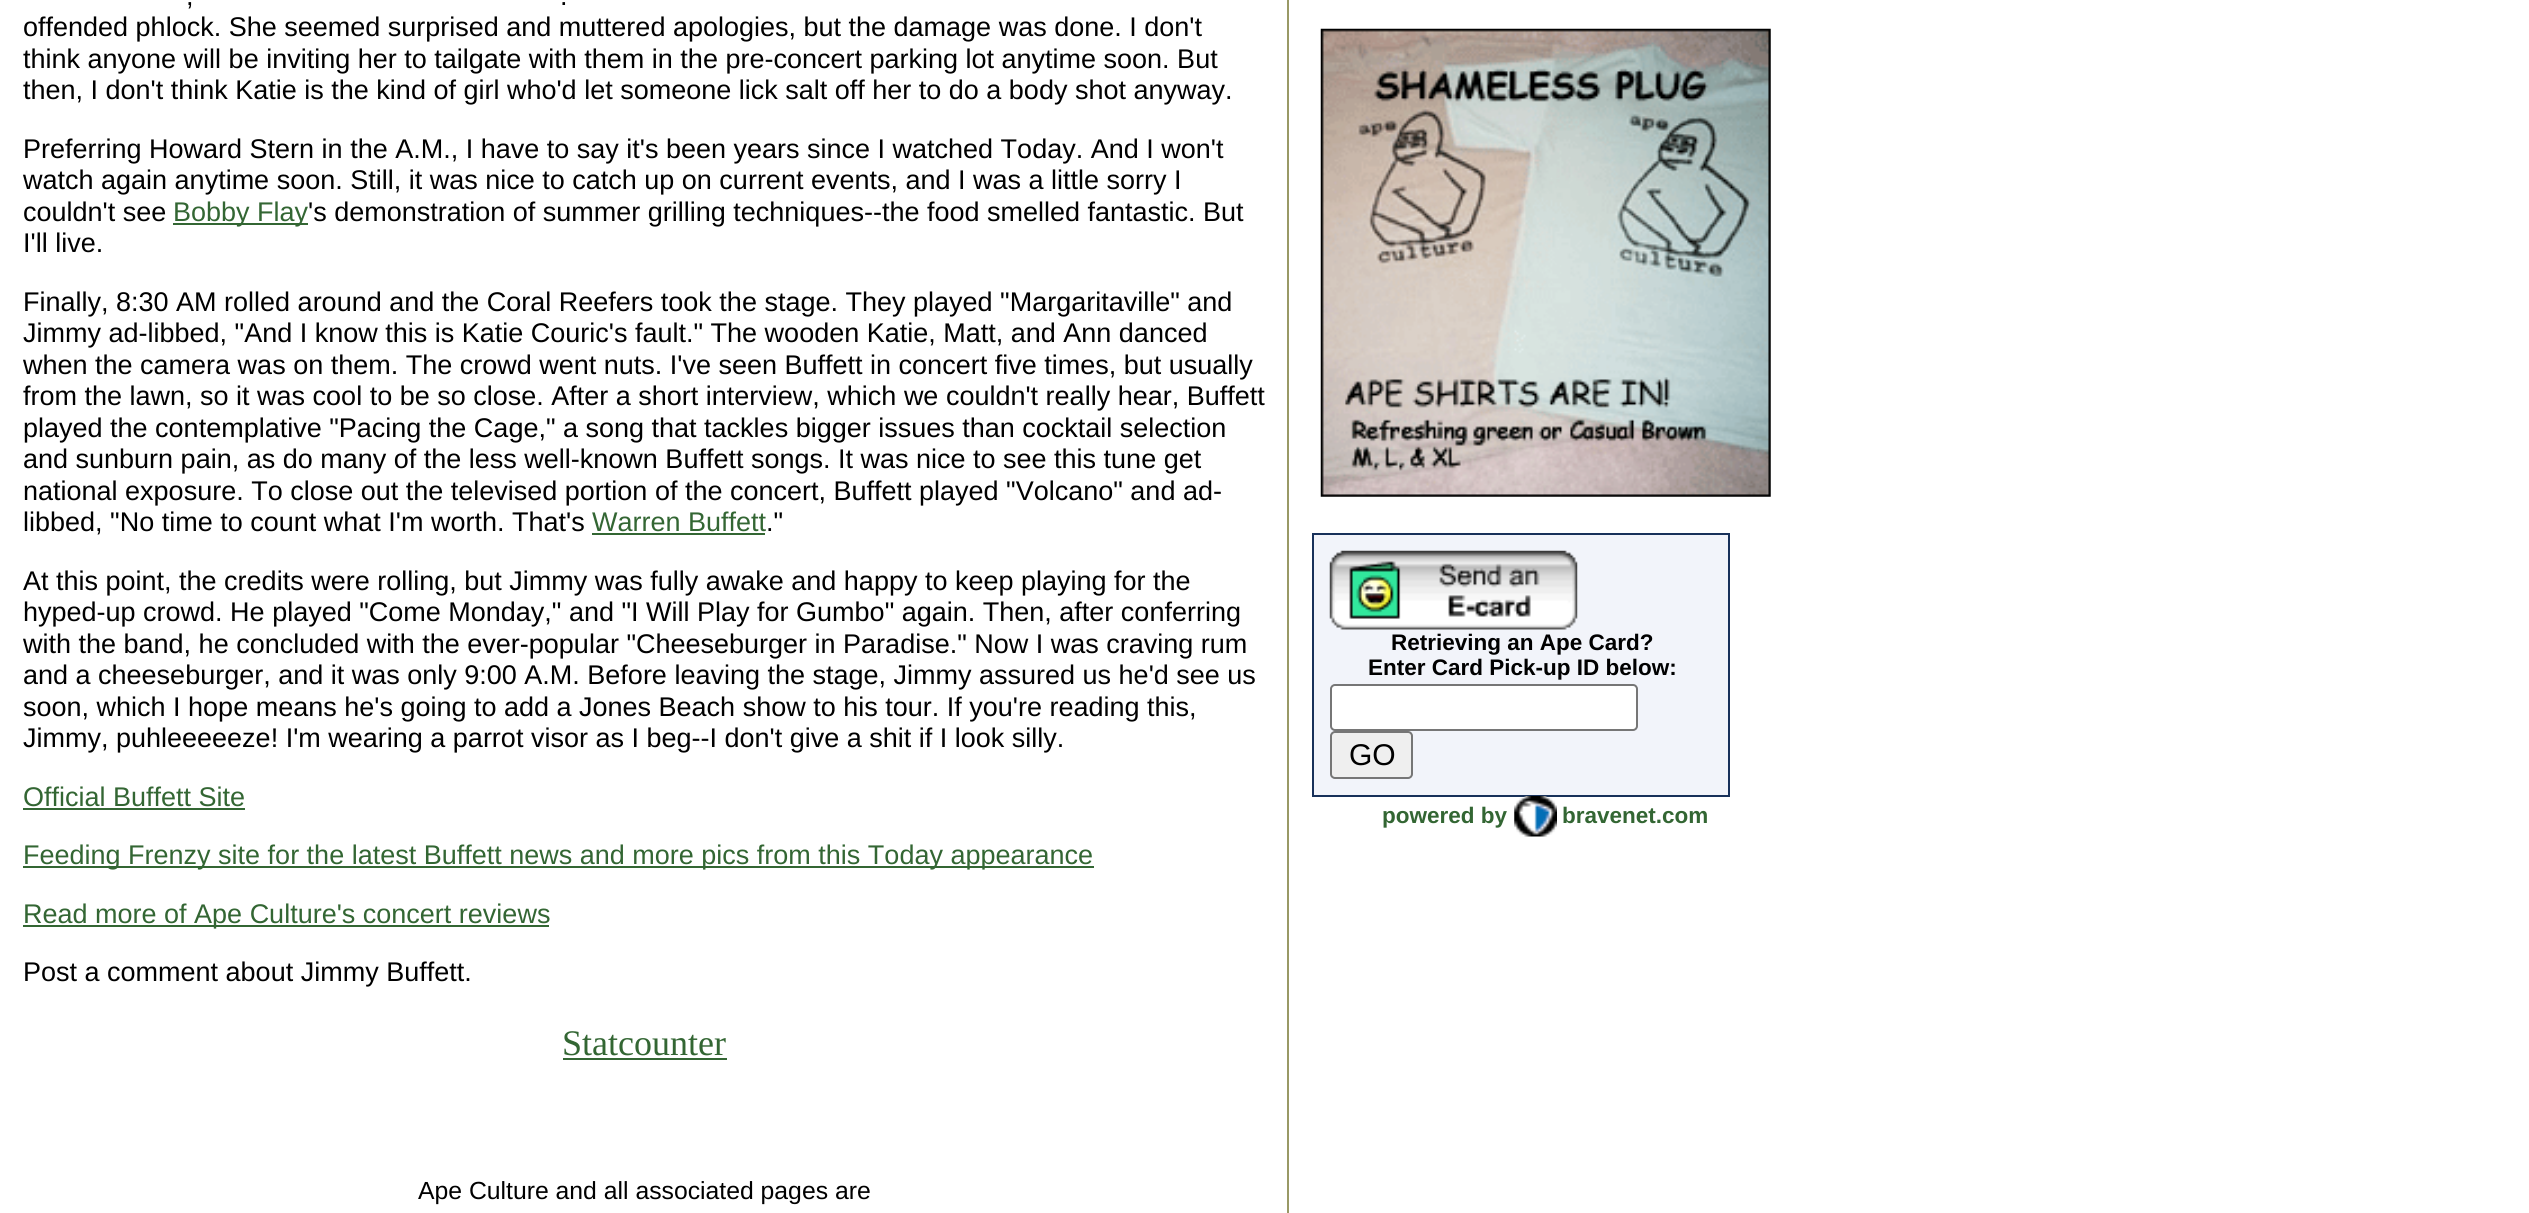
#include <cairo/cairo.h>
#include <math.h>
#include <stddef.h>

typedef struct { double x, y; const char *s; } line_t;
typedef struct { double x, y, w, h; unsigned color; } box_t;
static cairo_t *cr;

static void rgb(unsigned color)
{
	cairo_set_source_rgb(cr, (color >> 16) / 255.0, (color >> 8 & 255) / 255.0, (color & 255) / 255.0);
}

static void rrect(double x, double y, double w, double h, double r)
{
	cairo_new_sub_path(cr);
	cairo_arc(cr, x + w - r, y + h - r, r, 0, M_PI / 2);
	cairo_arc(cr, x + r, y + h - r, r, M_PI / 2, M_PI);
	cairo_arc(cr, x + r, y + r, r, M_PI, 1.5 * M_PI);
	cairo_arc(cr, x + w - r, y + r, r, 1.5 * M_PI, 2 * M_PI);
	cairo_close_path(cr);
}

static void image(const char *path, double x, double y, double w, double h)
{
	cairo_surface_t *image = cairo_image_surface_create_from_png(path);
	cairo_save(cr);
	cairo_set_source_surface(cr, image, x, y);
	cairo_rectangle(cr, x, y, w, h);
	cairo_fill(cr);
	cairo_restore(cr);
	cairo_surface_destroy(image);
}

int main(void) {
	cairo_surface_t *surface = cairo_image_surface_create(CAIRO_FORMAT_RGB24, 2529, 1213);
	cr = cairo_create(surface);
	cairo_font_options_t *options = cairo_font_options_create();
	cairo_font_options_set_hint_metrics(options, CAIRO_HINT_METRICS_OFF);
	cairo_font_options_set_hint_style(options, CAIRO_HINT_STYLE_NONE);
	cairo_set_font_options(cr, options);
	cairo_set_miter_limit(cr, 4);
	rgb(0xffffff);
	cairo_paint(cr);
	{
		static const box_t items[] = {
			{173, 223, 135, 2, 0x336633},
			{592, 533, 173, 2, 0x336633},
			{23, 808, 222, 2, 0x336633},
			{23, 866, 1071, 2, 0x336633},
			{23, 925, 526, 2, 0x336633},
			{563, 1058, 164, 2, 0x336633},
			{1287, 0, 2, 1213, 0x999966},
		};
		for (size_t i = 0; i < sizeof items / sizeof *items; i++) {
			rgb(items[i].color);
			cairo_rectangle(cr, items[i].x, items[i].y, items[i].w, items[i].h);
			cairo_fill(cr);
		}
	}
	image("img/1.png", 1320, 28, 451, 469);
	rgb(0xf2f4fa);
	cairo_rectangle(cr, 1313, 534, 416, 262);
	cairo_fill_preserve(cr);
	rgb(0x18315a);
	cairo_stroke(cr);
	image("img/2.png", 1329, 550, 249, 80);
	rgb(0xffffff);
	rrect(1331, 685, 306, 45, 4);
	cairo_fill_preserve(cr);
	rgb(0x767676);
	cairo_stroke(cr);
	rgb(0xefefef);
	rrect(1331, 732, 81, 46, 4);
	cairo_fill_preserve(cr);
	rgb(0x767676);
	cairo_stroke(cr);
	image("img/3.png", 1514, 796, 43, 41);
	cairo_select_font_face(cr, "Liberation Sans", CAIRO_FONT_SLANT_NORMAL, CAIRO_FONT_WEIGHT_NORMAL);
	cairo_set_font_size(cr, 27);
	rgb(0x000000);
	{
		static const line_t items[] = {
			{186, 5, ","},
			{560, 5, "."},
			{23, 36, "offended phlock. She seemed surprised and muttered apologies, but the damage was done. I don't"},
			{23, 68, "think anyone will be inviting her to tailgate with them in the pre-concert parking lot anytime soon. But"},
			{23, 99, "then, I don't think Katie is the kind of girl who'd let someone lick salt off her to do a body shot anyway."},
			{23, 158, "Preferring Howard Stern in the A.M., I have to say it's been years since I watched Today. And I won't"},
			{23, 189, "watch again anytime soon. Still, it was nice to catch up on current events, and I was a little sorry I"},
			{23, 221, "couldn't see"},
		};
		for (size_t i = 0; i < sizeof items / sizeof *items; i++) {
			cairo_move_to(cr, items[i].x, items[i].y);
			cairo_show_text(cr, items[i].s);
		}
	}
	rgb(0x336633);
	cairo_move_to(cr, 173, 221);
	cairo_show_text(cr, "Bobby Flay");
	rgb(0x000000);
	{
		static const line_t items[] = {
			{308, 221, "'s demonstration of summer grilling techniques--the food smelled fantastic. But"},
			{23, 252, "I'll live."},
			{23, 311, "Finally, 8:30 AM rolled around and the Coral Reefers took the stage. They played \"Margaritaville\" and"},
			{23, 342, "Jimmy ad-libbed, \"And I know this is Katie Couric's fault.\" The wooden Katie, Matt, and Ann danced"},
			{23, 374, "when the camera was on them. The crowd went nuts. I've seen Buffett in concert five times, but usually"},
			{23, 405, "from the lawn, so it was cool to be so close. After a short interview, which we couldn't really hear, Buffett"},
			{23, 437, "played the contemplative \"Pacing the Cage,\" a song that tackles bigger issues than cocktail selection"},
			{23, 468, "and sunburn pain, as do many of the less well-known Buffett songs. It was nice to see this tune get"},
			{23, 500, "national exposure. To close out the televised portion of the concert, Buffett played \"Volcano\" and ad-"},
			{23, 531, "libbed, \"No time to count what I'm worth. That's"},
		};
		for (size_t i = 0; i < sizeof items / sizeof *items; i++) {
			cairo_move_to(cr, items[i].x, items[i].y);
			cairo_show_text(cr, items[i].s);
		}
	}
	rgb(0x336633);
	cairo_move_to(cr, 592, 531);
	cairo_show_text(cr, "Warren Buffett");
	rgb(0x000000);
	{
		static const line_t items[] = {
			{766, 531, ".\""},
			{23, 590, "At this point, the credits were rolling, but Jimmy was fully awake and happy to keep playing for the"},
			{23, 621, "hyped-up crowd. He played \"Come Monday,\" and \"I Will Play for Gumbo\" again. Then, after conferring"},
			{23, 653, "with the band, he concluded with the ever-popular \"Cheeseburger in Paradise.\" Now I was craving rum"},
			{23, 684, "and a cheeseburger, and it was only 9:00 A.M. Before leaving the stage, Jimmy assured us he'd see us"},
			{23, 716, "soon, which I hope means he's going to add a Jones Beach show to his tour. If you're reading this,"},
			{23, 747, "Jimmy, puhleeeeeze! I'm wearing a parrot visor as I beg--I don't give a shit if I look silly."},
		};
		for (size_t i = 0; i < sizeof items / sizeof *items; i++) {
			cairo_move_to(cr, items[i].x, items[i].y);
			cairo_show_text(cr, items[i].s);
		}
	}
	rgb(0x336633);
	{
		static const line_t items[] = {
			{23, 806, "Official Buffett Site"},
			{23, 864, "Feeding Frenzy site for the latest Buffett news and more pics from this Today appearance"},
			{23, 923, "Read more of Ape Culture's concert reviews"},
		};
		for (size_t i = 0; i < sizeof items / sizeof *items; i++) {
			cairo_move_to(cr, items[i].x, items[i].y);
			cairo_show_text(cr, items[i].s);
		}
	}
	rgb(0x000000);
	cairo_move_to(cr, 23, 981);
	cairo_show_text(cr, "Post a comment about Jimmy Buffett.");
	cairo_select_font_face(cr, "Liberation Serif", CAIRO_FONT_SLANT_NORMAL, CAIRO_FONT_WEIGHT_NORMAL);
	cairo_set_font_size(cr, 36);
	rgb(0x336633);
	cairo_move_to(cr, 562, 1055);
	cairo_show_text(cr, "Statcounter");
	cairo_select_font_face(cr, "Liberation Sans", CAIRO_FONT_SLANT_NORMAL, CAIRO_FONT_WEIGHT_NORMAL);
	cairo_set_font_size(cr, 24.75);
	rgb(0x000000);
	cairo_move_to(cr, 418, 1199);
	cairo_show_text(cr, "Ape Culture and all associated pages are");
	cairo_select_font_face(cr, "Liberation Sans", CAIRO_FONT_SLANT_NORMAL, CAIRO_FONT_WEIGHT_BOLD);
	cairo_set_font_size(cr, 22.5);
	cairo_move_to(cr, 1391, 650);
	cairo_show_text(cr, "Retrieving an Ape Card?");
	cairo_move_to(cr, 1368, 675);
	cairo_show_text(cr, "Enter Card Pick-up ID below:");
	cairo_select_font_face(cr, "Liberation Sans", CAIRO_FONT_SLANT_NORMAL, CAIRO_FONT_WEIGHT_NORMAL);
	cairo_set_font_size(cr, 30);
	cairo_move_to(cr, 1349, 765);
	cairo_show_text(cr, "GO");
	cairo_select_font_face(cr, "Liberation Sans", CAIRO_FONT_SLANT_NORMAL, CAIRO_FONT_WEIGHT_BOLD);
	cairo_set_font_size(cr, 22.5);
	rgb(0x336633);
	cairo_move_to(cr, 1382, 823);
	cairo_show_text(cr, "powered by");
	cairo_move_to(cr, 1562, 823);
	cairo_show_text(cr, "bravenet.com");
	cairo_surface_write_to_png(surface, "page.png");
	cairo_font_options_destroy(options);
	cairo_destroy(cr);
	cairo_surface_destroy(surface);
	return 0;
}
